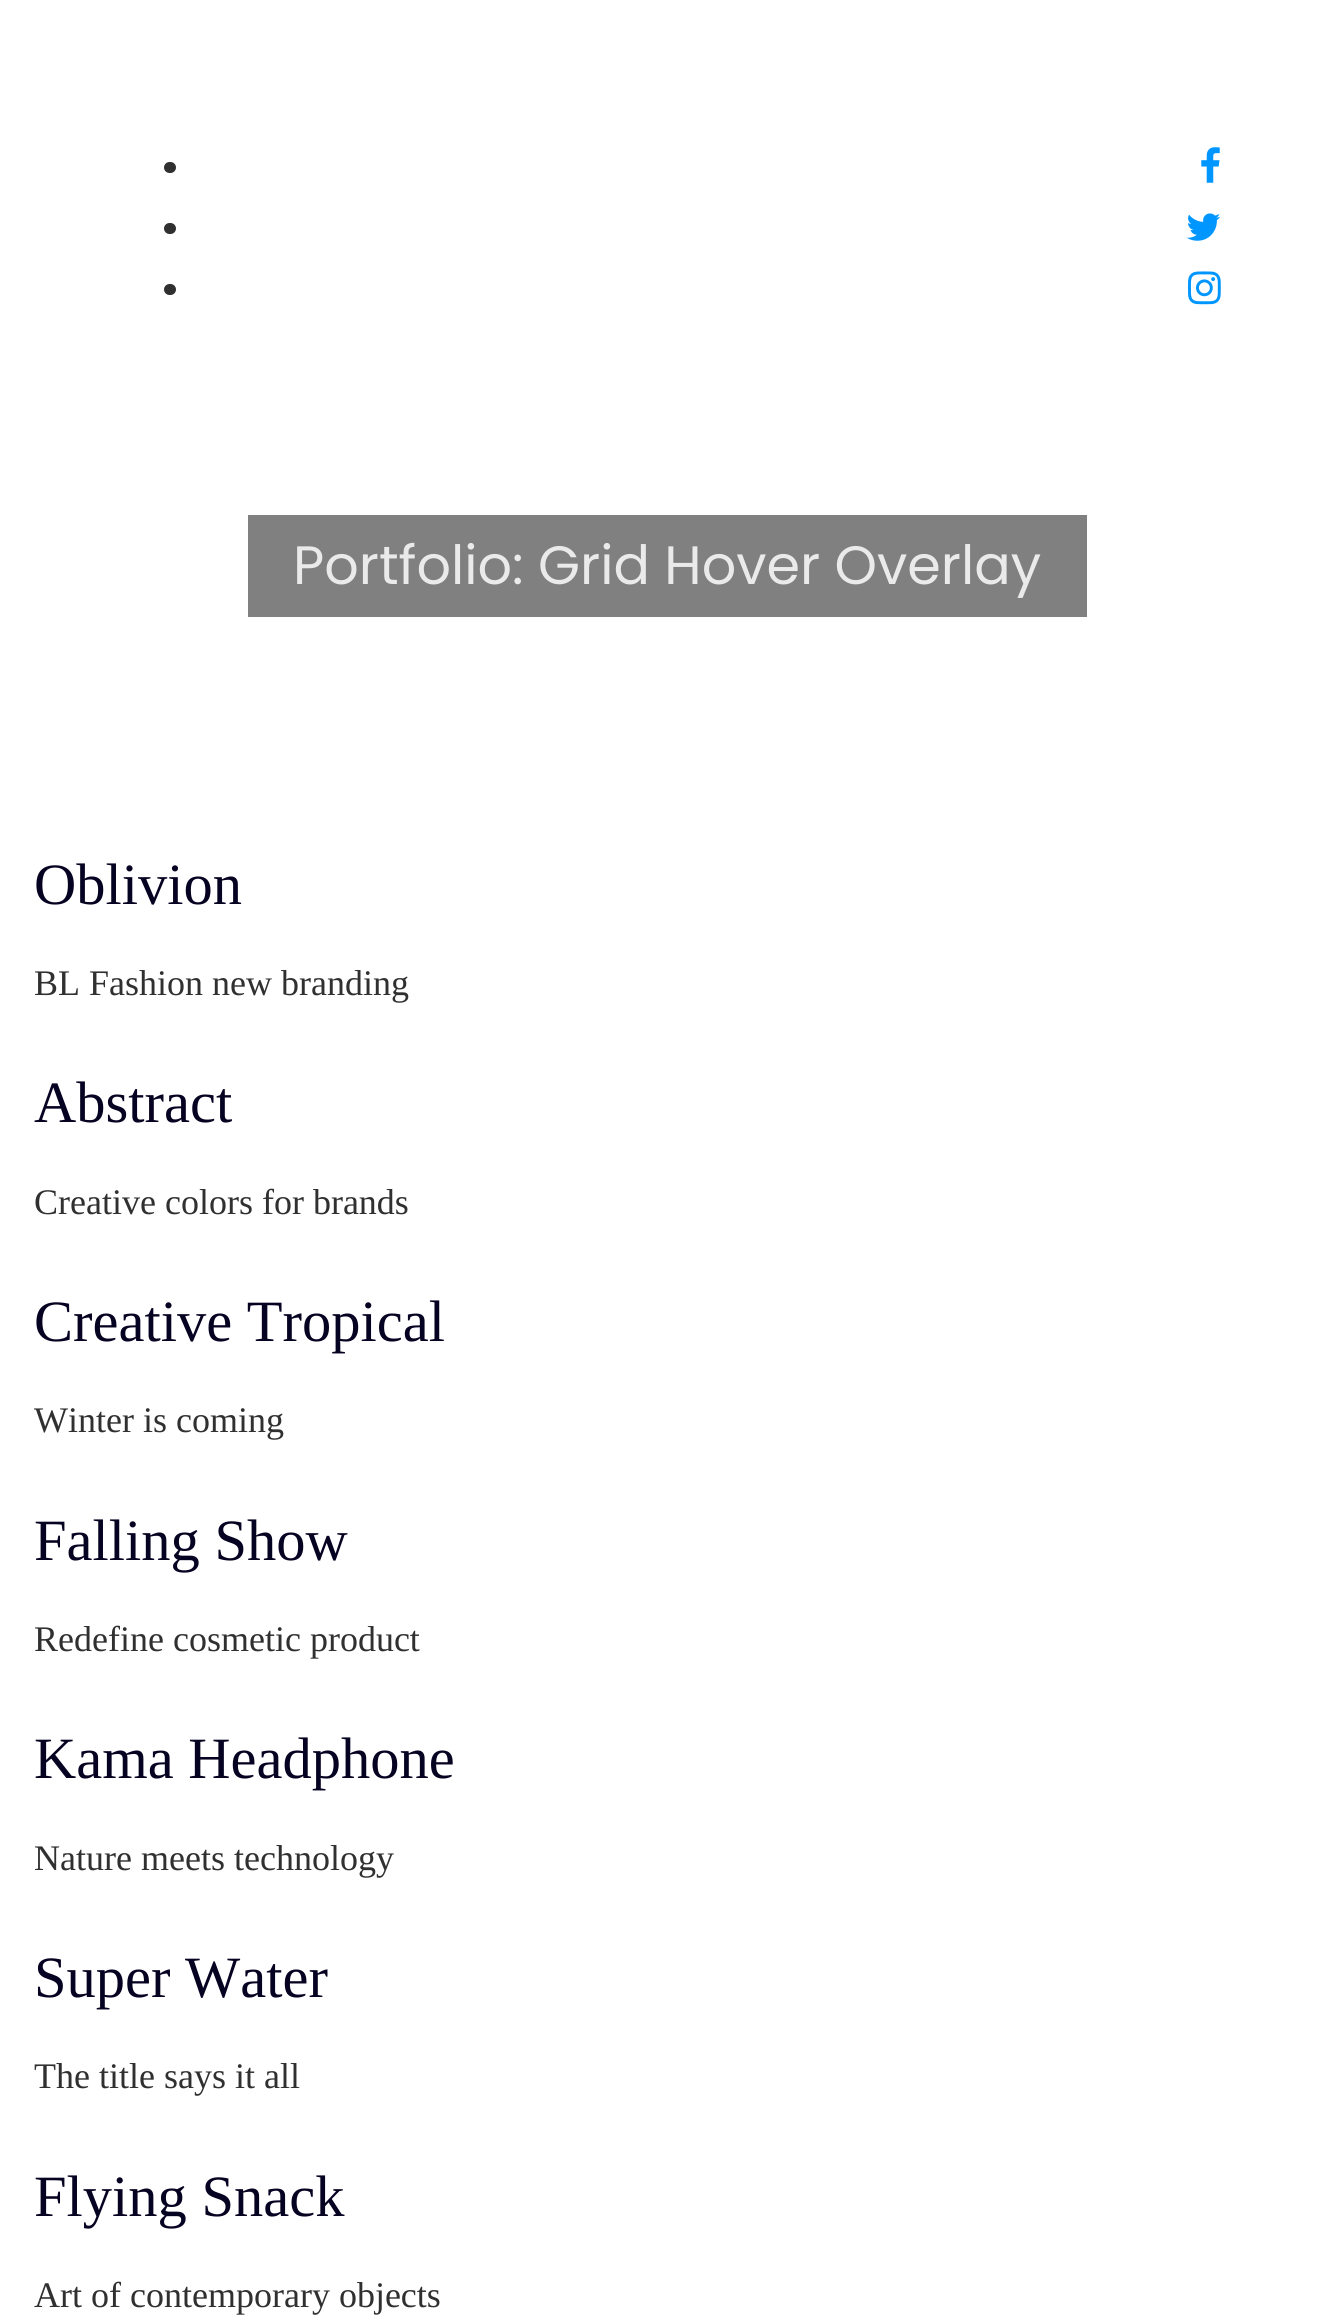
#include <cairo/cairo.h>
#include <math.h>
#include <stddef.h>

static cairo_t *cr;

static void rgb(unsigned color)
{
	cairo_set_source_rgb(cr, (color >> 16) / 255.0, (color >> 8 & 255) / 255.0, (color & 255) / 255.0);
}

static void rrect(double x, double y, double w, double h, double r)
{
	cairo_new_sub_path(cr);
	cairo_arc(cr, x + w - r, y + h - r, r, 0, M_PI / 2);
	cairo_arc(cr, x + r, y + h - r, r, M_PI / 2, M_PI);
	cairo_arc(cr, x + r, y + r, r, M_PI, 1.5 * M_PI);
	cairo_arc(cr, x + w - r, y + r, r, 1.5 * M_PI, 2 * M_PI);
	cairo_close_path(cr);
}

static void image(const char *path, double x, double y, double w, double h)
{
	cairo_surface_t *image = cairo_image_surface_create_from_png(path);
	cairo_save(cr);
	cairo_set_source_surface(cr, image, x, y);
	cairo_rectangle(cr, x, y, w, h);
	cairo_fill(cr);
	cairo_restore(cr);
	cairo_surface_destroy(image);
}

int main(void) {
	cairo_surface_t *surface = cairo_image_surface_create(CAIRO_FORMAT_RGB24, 1334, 2320);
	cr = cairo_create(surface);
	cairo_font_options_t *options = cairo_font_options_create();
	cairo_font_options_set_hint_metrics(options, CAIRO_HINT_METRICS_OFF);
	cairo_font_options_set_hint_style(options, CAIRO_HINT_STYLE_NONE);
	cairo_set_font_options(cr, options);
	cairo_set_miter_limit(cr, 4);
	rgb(0xffffff);
	cairo_paint(cr);
	rgb(0x303030);
	rrect(164, 162, 12, 11, 5.5);
	cairo_fill(cr);
	image("img/1.png", 1201, 147, 19, 36);
	rrect(164, 223, 12, 11, 5.5);
	cairo_fill(cr);
	image("img/2.png", 1186, 213, 35, 28);
	rrect(164, 284, 12, 11, 5.5);
	cairo_fill(cr);
	image("img/3.png", 1188, 271, 33, 34);
	rgb(0x808080);
	cairo_rectangle(cr, 248, 515, 839, 102);
	cairo_fill(cr);
	cairo_select_font_face(cr, "Poppins", CAIRO_FONT_SLANT_NORMAL, CAIRO_FONT_WEIGHT_NORMAL);
	cairo_set_font_size(cr, 54);
	rgb(0xeaeaea);
	cairo_move_to(cr, 293, 584);
	cairo_show_text(cr, "Portfolio: Grid Hover Overlay");
	cairo_select_font_face(cr, "Liberation Serif", CAIRO_FONT_SLANT_NORMAL, CAIRO_FONT_WEIGHT_NORMAL);
	cairo_set_font_size(cr, 58.5);
	rgb(0x060221);
	cairo_move_to(cr, 34, 904);
	cairo_show_text(cr, "Oblivion");
	cairo_set_font_size(cr, 36);
	rgb(0x303030);
	cairo_move_to(cr, 34, 995);
	cairo_show_text(cr, "BL Fashion new branding");
	cairo_set_font_size(cr, 58.5);
	rgb(0x060221);
	cairo_move_to(cr, 34, 1122);
	cairo_show_text(cr, "Abstract");
	cairo_set_font_size(cr, 36);
	rgb(0x303030);
	cairo_move_to(cr, 34, 1214);
	cairo_show_text(cr, "Creative colors for brands");
	cairo_set_font_size(cr, 58.5);
	rgb(0x060221);
	cairo_move_to(cr, 34, 1341);
	cairo_show_text(cr, "Creative Tropical");
	cairo_set_font_size(cr, 36);
	rgb(0x303030);
	cairo_move_to(cr, 34, 1432);
	cairo_show_text(cr, "Winter is coming");
	cairo_set_font_size(cr, 58.5);
	rgb(0x060221);
	cairo_move_to(cr, 34, 1560);
	cairo_show_text(cr, "Falling Show");
	cairo_set_font_size(cr, 36);
	rgb(0x303030);
	cairo_move_to(cr, 34, 1651);
	cairo_show_text(cr, "Redefine cosmetic product");
	cairo_set_font_size(cr, 58.5);
	rgb(0x060221);
	cairo_move_to(cr, 34, 1778);
	cairo_show_text(cr, "Kama Headphone");
	cairo_set_font_size(cr, 36);
	rgb(0x303030);
	cairo_move_to(cr, 34, 1870);
	cairo_show_text(cr, "Nature meets technology");
	cairo_set_font_size(cr, 58.5);
	rgb(0x060221);
	cairo_move_to(cr, 34, 1997);
	cairo_show_text(cr, "Super Water");
	cairo_set_font_size(cr, 36);
	rgb(0x303030);
	cairo_move_to(cr, 34, 2088);
	cairo_show_text(cr, "The title says it all");
	cairo_set_font_size(cr, 58.5);
	rgb(0x060221);
	cairo_move_to(cr, 34, 2216);
	cairo_show_text(cr, "Flying Snack");
	cairo_set_font_size(cr, 36);
	rgb(0x303030);
	cairo_move_to(cr, 34, 2307);
	cairo_show_text(cr, "Art of contemporary objects");
	cairo_surface_write_to_png(surface, "page.png");
	cairo_font_options_destroy(options);
	cairo_destroy(cr);
	cairo_surface_destroy(surface);
	return 0;
}
